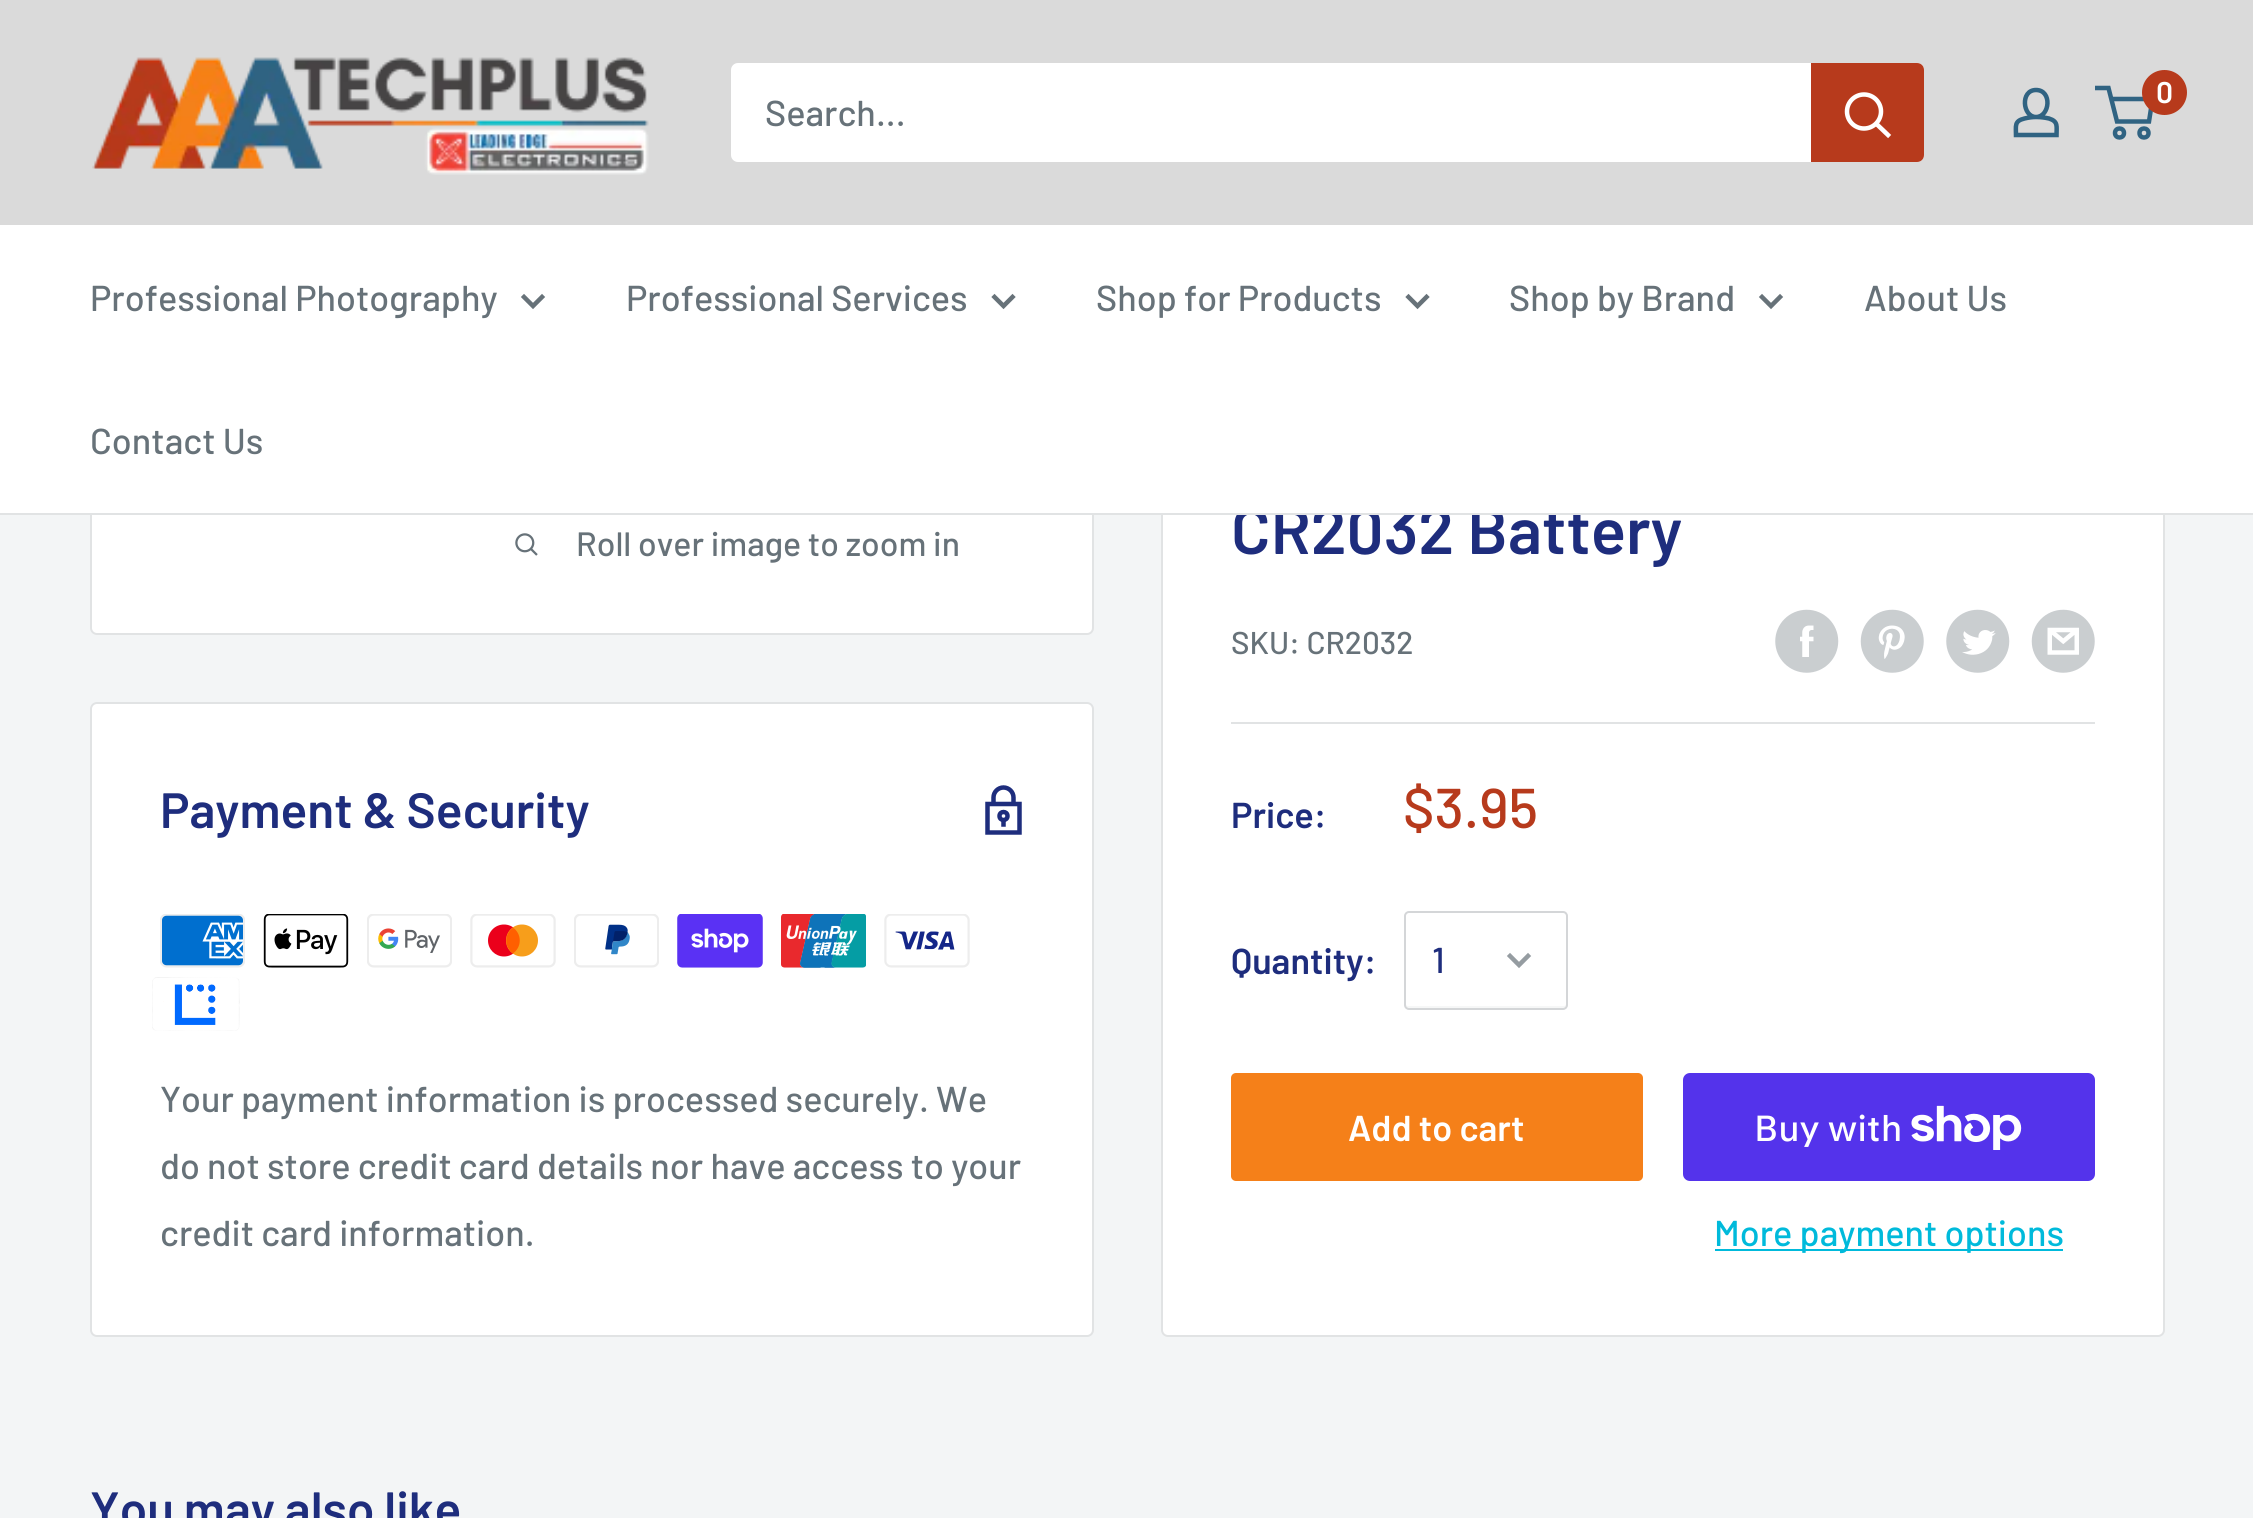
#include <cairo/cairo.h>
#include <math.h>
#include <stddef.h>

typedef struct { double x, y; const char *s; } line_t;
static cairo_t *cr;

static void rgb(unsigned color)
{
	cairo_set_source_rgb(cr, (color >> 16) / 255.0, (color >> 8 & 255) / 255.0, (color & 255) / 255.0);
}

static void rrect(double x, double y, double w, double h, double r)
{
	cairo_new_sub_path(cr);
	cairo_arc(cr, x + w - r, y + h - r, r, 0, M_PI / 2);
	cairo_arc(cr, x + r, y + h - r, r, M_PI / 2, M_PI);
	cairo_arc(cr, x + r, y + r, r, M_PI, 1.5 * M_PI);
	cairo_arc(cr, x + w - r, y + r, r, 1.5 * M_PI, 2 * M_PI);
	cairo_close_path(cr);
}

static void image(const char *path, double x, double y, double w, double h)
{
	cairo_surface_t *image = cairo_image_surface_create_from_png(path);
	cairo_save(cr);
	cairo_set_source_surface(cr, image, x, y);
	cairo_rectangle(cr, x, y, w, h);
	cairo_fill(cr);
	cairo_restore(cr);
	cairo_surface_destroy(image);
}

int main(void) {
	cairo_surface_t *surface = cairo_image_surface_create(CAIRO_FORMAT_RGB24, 2253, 1518);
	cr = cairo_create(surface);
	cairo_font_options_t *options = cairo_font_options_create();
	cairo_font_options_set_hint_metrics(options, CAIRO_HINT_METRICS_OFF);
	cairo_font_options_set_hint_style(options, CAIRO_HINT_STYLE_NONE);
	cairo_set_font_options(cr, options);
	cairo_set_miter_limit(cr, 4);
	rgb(0xf3f5f6);
	cairo_paint(cr);
	rgb(0xffffff);
	rrect(91, -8, 1002, 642, 6);
	cairo_fill_preserve(cr);
	rgb(0xe1e3e4);
	cairo_stroke(cr);
	rgb(0xdadada);
	cairo_rectangle(cr, 0, 0, 2253, 225);
	cairo_fill(cr);
	image("img/1.png", 92, 57, 557, 118);
	cairo_new_path(cr);
	cairo_move_to(cr, 2036, 117);
	cairo_curve_to(cr, 2040.5, 117, 2044.5, 117.5, 2049, 118.5);
	cairo_curve_to(cr, 2058.5, 121.5, 2056.5, 126.5, 2056.5, 135);
	cairo_line_to(cr, 2016, 135);
	cairo_curve_to(cr, 2016, 126, 2014, 121, 2024.5, 118.5);
	cairo_curve_to(cr, 2028.5, 117.5, 2032.5, 117, 2036, 117);
	cairo_close_path(cr);
	cairo_move_to(cr, 2036, 117);
	cairo_curve_to(cr, 2022.5, 117, 2020, 90, 2036, 90);
	cairo_curve_to(cr, 2052.5, 90, 2050, 117, 2036, 117);
	cairo_close_path(cr);
	rgb(0x306382);
	cairo_set_line_width(cr, 4.5);
	cairo_stroke(cr);
	cairo_arc(cr, 2119.5, 133, 4.5, 0, 2 * M_PI);
	cairo_stroke(cr);
	cairo_arc(cr, 2144, 133, 4.5, 0, 2 * M_PI);
	cairo_stroke(cr);
	cairo_new_path(cr);
	cairo_move_to(cr, 2111, 99);
	cairo_line_to(cr, 2152.5, 99);
	cairo_line_to(cr, 2149, 121.5);
	cairo_line_to(cr, 2117, 121.5);
	cairo_line_to(cr, 2108.5, 88);
	cairo_line_to(cr, 2095, 88);
	cairo_stroke(cr);
	rgb(0xb73a1c);
	cairo_arc(cr, 2164.5, 92.5, 22.5, 0, 2 * M_PI);
	cairo_fill(cr);
	rgb(0xffffff);
	rrect(731, 63, 1193, 99, 7);
	cairo_fill(cr);
	rgb(0xb73a1c);
	cairo_new_path(cr);
	cairo_move_to(cr, 1811, 63);
	cairo_line_to(cr, 1917, 63);
	cairo_curve_to(cr, 1921, 63, 1924, 66, 1924, 70);
	cairo_line_to(cr, 1924, 155);
	cairo_curve_to(cr, 1924, 159, 1921, 162, 1917, 162);
	cairo_line_to(cr, 1811, 162);
	cairo_close_path(cr);
	cairo_fill(cr);
	cairo_new_path(cr);
	cairo_move_to(cr, 1888, 135);
	cairo_line_to(cr, 1876.5, 124);
	rgb(0xffffff);
	cairo_set_line_cap(cr, CAIRO_LINE_CAP_SQUARE);
	cairo_stroke(cr);
	cairo_arc(cr, 1864, 111.5, 17, 0, 2 * M_PI);
	cairo_set_line_cap(cr, CAIRO_LINE_CAP_BUTT);
	cairo_stroke(cr);
	image("img/2.png", 515, 533, 23, 23);
	rrect(1162, 438, 1002, 898, 6);
	cairo_fill_preserve(cr);
	rgb(0xe1e3e4);
	cairo_set_line_width(cr, 2);
	cairo_stroke(cr);
	image("img/3.png", 1775, 609, 64, 64);
	image("img/4.png", 1860, 609, 64, 64);
	image("img/5.png", 1946, 609, 64, 64);
	image("img/6.png", 2031, 609, 64, 64);
	cairo_rectangle(cr, 1231, 722, 864, 2);
	cairo_fill(cr);
	rgb(0xf6f7f7);
	cairo_new_path(cr);
	cairo_move_to(cr, 1406, 1004);
	cairo_curve_to(cr, 1406, 1006, 1406, 1008, 1408, 1008);
	cairo_line_to(cr, 1564, 1008);
	cairo_curve_to(cr, 1566, 1008, 1566, 1006, 1566, 1004);
	cairo_curve_to(cr, 1566, 1005, 1565, 1006, 1564, 1006);
	cairo_line_to(cr, 1408, 1006);
	cairo_curve_to(cr, 1407, 1006, 1406, 1005, 1406, 1004);
	cairo_close_path(cr);
	cairo_fill(cr);
	rrect(1405, 912, 162, 97, 4);
	rgb(0xd4d6d8);
	cairo_stroke(cr);
	cairo_new_path(cr);
	cairo_move_to(cr, 1528, 956);
	cairo_line_to(cr, 1519, 965);
	cairo_line_to(cr, 1510, 956);
	rgb(0x959ca1);
	cairo_set_line_width(cr, 4.5);
	cairo_set_line_cap(cr, CAIRO_LINE_CAP_SQUARE);
	cairo_stroke(cr);
	rgb(0xf58019);
	rrect(1231, 1073, 412, 108, 5);
	cairo_fill(cr);
	rgb(0x5433eb);
	rrect(1683, 1073, 412, 108, 7);
	cairo_fill(cr);
	image("img/7.png", 1911, 1105, 111, 45);
	rgb(0x00badb);
	cairo_rectangle(cr, 1715, 1249, 348, 2);
	cairo_fill(cr);
	rgb(0xffffff);
	rrect(91, 703, 1002, 633, 6);
	cairo_fill_preserve(cr);
	rgb(0xe1e3e4);
	cairo_set_line_width(cr, 2);
	cairo_set_line_cap(cr, CAIRO_LINE_CAP_BUTT);
	cairo_stroke(cr);
	cairo_new_path(cr);
	cairo_move_to(cr, 1003.5, 787.5);
	cairo_curve_to(cr, 998, 787.5, 993.5, 792, 993.5, 797.5);
	cairo_line_to(cr, 993.5, 804);
	cairo_line_to(cr, 1013.5, 804);
	cairo_line_to(cr, 1013.5, 797.5);
	cairo_curve_to(cr, 1013.5, 792, 1009, 787.5, 1003.5, 787.5);
	cairo_close_path(cr);
	cairo_move_to(cr, 987.5, 804);
	cairo_line_to(cr, 1019.5, 804);
	cairo_line_to(cr, 1019.5, 832.5);
	cairo_line_to(cr, 987.5, 832.5);
	cairo_close_path(cr);
	rgb(0x1e2d7d);
	cairo_set_line_width(cr, 4.5);
	cairo_set_line_cap(cr, CAIRO_LINE_CAP_SQUARE);
	cairo_stroke(cr);
	cairo_arc(cr, 1003.5, 816, 4, 0, 2 * M_PI);
	cairo_set_line_cap(cr, CAIRO_LINE_CAP_BUTT);
	cairo_stroke(cr);
	cairo_new_path(cr);
	cairo_move_to(cr, 1003.5, 820.5);
	cairo_line_to(cr, 1003.5, 824.5);
	cairo_set_line_cap(cr, CAIRO_LINE_CAP_SQUARE);
	cairo_stroke(cr);
	image("img/8.png", 160, 914, 85, 54);
	image("img/9.png", 263, 914, 86, 54);
	image("img/10.png", 367, 914, 85, 54);
	image("img/11.png", 470, 914, 86, 54);
	image("img/12.png", 574, 914, 85, 54);
	image("img/13.png", 677, 914, 86, 54);
	image("img/14.png", 781, 914, 85, 54);
	image("img/15.png", 884, 914, 86, 54);
	image("img/16.png", 152, 977, 88, 54);
	cairo_select_font_face(cr, "Barlow SemiBold", CAIRO_FONT_SLANT_NORMAL, CAIRO_FONT_WEIGHT_NORMAL);
	cairo_set_font_size(cr, 30);
	rgb(0xffffff);
	cairo_move_to(cr, 2156, 103);
	cairo_show_text(cr, "0");
	cairo_select_font_face(cr, "Barlow Medium", CAIRO_FONT_SLANT_NORMAL, CAIRO_FONT_WEIGHT_NORMAL);
	cairo_set_font_size(cr, 36);
	rgb(0x677279);
	cairo_move_to(cr, 765, 126);
	cairo_show_text(cr, "Search...");
	cairo_set_font_size(cr, 33.75);
	cairo_move_to(cr, 576, 556);
	cairo_show_text(cr, "Roll over image to zoom in");
	cairo_select_font_face(cr, "Barlow SemiBold", CAIRO_FONT_SLANT_NORMAL, CAIRO_FONT_WEIGHT_NORMAL);
	cairo_set_font_size(cr, 65.25);
	rgb(0x1e2d7d);
	cairo_move_to(cr, 1231, 554);
	cairo_show_text(cr, "CR2032 Battery");
	rgb(0xffffff);
	cairo_rectangle(cr, 0, 225, 2253, 288);
	cairo_fill(cr);
	cairo_select_font_face(cr, "Barlow Medium", CAIRO_FONT_SLANT_NORMAL, CAIRO_FONT_WEIGHT_NORMAL);
	cairo_set_font_size(cr, 36);
	rgb(0x677279);
	cairo_move_to(cr, 90, 454);
	cairo_show_text(cr, "Contact Us");
	cairo_move_to(cr, 1864, 311);
	cairo_show_text(cr, "About Us");
	cairo_new_path(cr);
	cairo_move_to(cr, 1780, 297);
	cairo_line_to(cr, 1771, 306);
	cairo_line_to(cr, 1762, 297);
	cairo_stroke(cr);
	cairo_move_to(cr, 1509, 311);
	cairo_show_text(cr, "Shop by Brand");
	cairo_new_path(cr);
	cairo_move_to(cr, 1426.5, 297);
	cairo_line_to(cr, 1417.5, 306);
	cairo_line_to(cr, 1408.5, 297);
	cairo_stroke(cr);
	cairo_move_to(cr, 1096, 311);
	cairo_show_text(cr, "Shop for Products");
	cairo_new_path(cr);
	cairo_move_to(cr, 1012.5, 297);
	cairo_line_to(cr, 1003.5, 306);
	cairo_line_to(cr, 994.5, 297);
	cairo_stroke(cr);
	cairo_move_to(cr, 626, 311);
	cairo_show_text(cr, "Professional Services");
	cairo_new_path(cr);
	cairo_move_to(cr, 542, 297);
	cairo_line_to(cr, 533, 306);
	cairo_line_to(cr, 524, 297);
	cairo_stroke(cr);
	cairo_move_to(cr, 90, 311);
	cairo_show_text(cr, "Professional Photography");
	rgb(0xe1e3e4);
	cairo_rectangle(cr, 0, 513, 2253, 2);
	cairo_fill(cr);
	cairo_set_font_size(cr, 31.5);
	rgb(0x677279);
	cairo_move_to(cr, 1231, 654);
	cairo_show_text(cr, "SKU: CR2032");
	cairo_select_font_face(cr, "Barlow SemiBold", CAIRO_FONT_SLANT_NORMAL, CAIRO_FONT_WEIGHT_NORMAL);
	cairo_set_font_size(cr, 36);
	rgb(0x1e2d7d);
	cairo_move_to(cr, 1231, 828);
	cairo_show_text(cr, "Price:");
	cairo_select_font_face(cr, "Barlow Medium", CAIRO_FONT_SLANT_NORMAL, CAIRO_FONT_WEIGHT_NORMAL);
	cairo_set_font_size(cr, 56);
	rgb(0xb73a1c);
	cairo_move_to(cr, 1403, 828);
	cairo_show_text(cr, "$3.95");
	cairo_select_font_face(cr, "Barlow SemiBold", CAIRO_FONT_SLANT_NORMAL, CAIRO_FONT_WEIGHT_NORMAL);
	cairo_set_font_size(cr, 36);
	rgb(0x1e2d7d);
	cairo_move_to(cr, 1231, 974);
	cairo_show_text(cr, "Quantity:");
	cairo_select_font_face(cr, "Barlow Medium", CAIRO_FONT_SLANT_NORMAL, CAIRO_FONT_WEIGHT_NORMAL);
	cairo_move_to(cr, 1432, 973);
	cairo_show_text(cr, "1");
	cairo_select_font_face(cr, "Barlow SemiBold", CAIRO_FONT_SLANT_NORMAL, CAIRO_FONT_WEIGHT_NORMAL);
	rgb(0xffffff);
	cairo_move_to(cr, 1348, 1141);
	cairo_show_text(cr, "Add to cart");
	cairo_select_font_face(cr, "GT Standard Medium", CAIRO_FONT_SLANT_NORMAL, CAIRO_FONT_WEIGHT_NORMAL);
	cairo_move_to(cr, 1754, 1141);
	cairo_show_text(cr, "Buy with");
	cairo_select_font_face(cr, "Barlow Medium", CAIRO_FONT_SLANT_NORMAL, CAIRO_FONT_WEIGHT_NORMAL);
	rgb(0x00badb);
	cairo_move_to(cr, 1714, 1246);
	cairo_show_text(cr, "More payment options");
	cairo_select_font_face(cr, "Barlow SemiBold", CAIRO_FONT_SLANT_NORMAL, CAIRO_FONT_WEIGHT_NORMAL);
	cairo_set_font_size(cr, 49.5);
	rgb(0x1e2d7d);
	cairo_move_to(cr, 160, 828);
	cairo_show_text(cr, "Payment & Security");
	cairo_select_font_face(cr, "Barlow Medium", CAIRO_FONT_SLANT_NORMAL, CAIRO_FONT_WEIGHT_NORMAL);
	cairo_set_font_size(cr, 36);
	rgb(0x677279);
	{
		static const line_t items[] = {
			{160, 1112, "Your payment information is processed securely. We"},
			{160, 1179, "do not store credit card details nor have access to your"},
			{160, 1246, "credit card information."},
		};
		for (size_t i = 0; i < sizeof items / sizeof *items; i++) {
			cairo_move_to(cr, items[i].x, items[i].y);
			cairo_show_text(cr, items[i].s);
		}
	}
	cairo_select_font_face(cr, "Barlow SemiBold", CAIRO_FONT_SLANT_NORMAL, CAIRO_FONT_WEIGHT_NORMAL);
	cairo_set_font_size(cr, 49.5);
	rgb(0x1e2d7d);
	cairo_move_to(cr, 90, 1527);
	cairo_show_text(cr, "You may also like");
	cairo_surface_write_to_png(surface, "page.png");
	cairo_font_options_destroy(options);
	cairo_destroy(cr);
	cairo_surface_destroy(surface);
	return 0;
}
